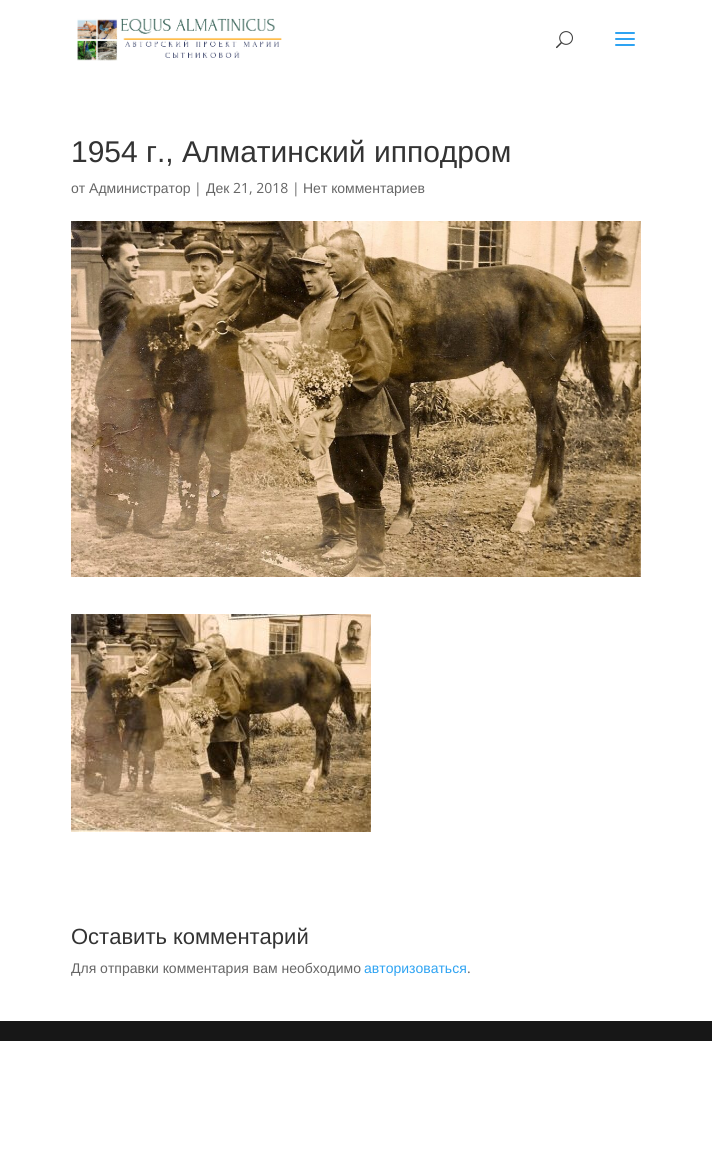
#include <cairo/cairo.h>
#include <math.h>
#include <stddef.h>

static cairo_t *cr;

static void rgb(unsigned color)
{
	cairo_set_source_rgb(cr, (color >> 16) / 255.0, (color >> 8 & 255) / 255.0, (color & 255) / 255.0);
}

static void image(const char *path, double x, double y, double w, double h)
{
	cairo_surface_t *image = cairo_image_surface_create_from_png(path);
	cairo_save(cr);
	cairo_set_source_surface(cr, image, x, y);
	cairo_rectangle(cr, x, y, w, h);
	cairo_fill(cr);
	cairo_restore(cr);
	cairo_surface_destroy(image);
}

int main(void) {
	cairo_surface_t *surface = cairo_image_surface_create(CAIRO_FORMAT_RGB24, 712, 1170);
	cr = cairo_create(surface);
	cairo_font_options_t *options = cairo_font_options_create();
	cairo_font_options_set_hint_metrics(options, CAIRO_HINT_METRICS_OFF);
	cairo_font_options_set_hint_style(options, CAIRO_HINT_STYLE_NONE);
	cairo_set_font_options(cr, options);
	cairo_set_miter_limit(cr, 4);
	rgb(0xffffff);
	cairo_paint(cr);
	image("img/1.png", 77, 18, 205, 43);
	image("img/2.png", 556, 31, 17, 18);
	image("img/3.png", 615, 32, 20, 14);
	image("img/4.png", 71, 221, 570, 356);
	image("img/5.png", 71, 614, 300, 218);
	rgb(0x171717);
	cairo_rectangle(cr, 0, 1021, 712, 20);
	cairo_fill(cr);
	cairo_select_font_face(cr, "Liberation Sans", CAIRO_FONT_SLANT_NORMAL, CAIRO_FONT_WEIGHT_NORMAL);
	cairo_set_font_size(cr, 30);
	rgb(0x333333);
	cairo_move_to(cr, 71, 162);
	cairo_show_text(cr, "1954 г., Алматинский ипподром");
	cairo_set_font_size(cr, 14);
	rgb(0x666666);
	cairo_move_to(cr, 71, 193);
	cairo_show_text(cr, "от Администратор");
	cairo_select_font_face(cr, "Open Sans", CAIRO_FONT_SLANT_NORMAL, CAIRO_FONT_WEIGHT_NORMAL);
	cairo_move_to(cr, 194, 193);
	cairo_show_text(cr, "|");
	cairo_select_font_face(cr, "Liberation Sans", CAIRO_FONT_SLANT_NORMAL, CAIRO_FONT_WEIGHT_NORMAL);
	cairo_move_to(cr, 206, 193);
	cairo_show_text(cr, "Дек");
	cairo_select_font_face(cr, "Open Sans", CAIRO_FONT_SLANT_NORMAL, CAIRO_FONT_WEIGHT_NORMAL);
	cairo_move_to(cr, 233, 193);
	cairo_show_text(cr, "21, 2018 |");
	cairo_select_font_face(cr, "Liberation Sans", CAIRO_FONT_SLANT_NORMAL, CAIRO_FONT_WEIGHT_NORMAL);
	cairo_move_to(cr, 303, 193);
	cairo_show_text(cr, "Нет комментариев");
	cairo_set_font_size(cr, 22);
	rgb(0x333333);
	cairo_move_to(cr, 71, 944);
	cairo_show_text(cr, "Оставить комментарий");
	cairo_set_font_size(cr, 14);
	rgb(0x666666);
	cairo_move_to(cr, 71, 973);
	cairo_show_text(cr, "Для отправки комментария вам необходимо");
	rgb(0x2ea3f2);
	cairo_move_to(cr, 364, 973);
	cairo_show_text(cr, "авторизоваться");
	cairo_select_font_face(cr, "Open Sans", CAIRO_FONT_SLANT_NORMAL, CAIRO_FONT_WEIGHT_NORMAL);
	rgb(0x666666);
	cairo_move_to(cr, 467, 973);
	cairo_show_text(cr, ".");
	cairo_surface_write_to_png(surface, "page.png");
	cairo_font_options_destroy(options);
	cairo_destroy(cr);
	cairo_surface_destroy(surface);
	return 0;
}
